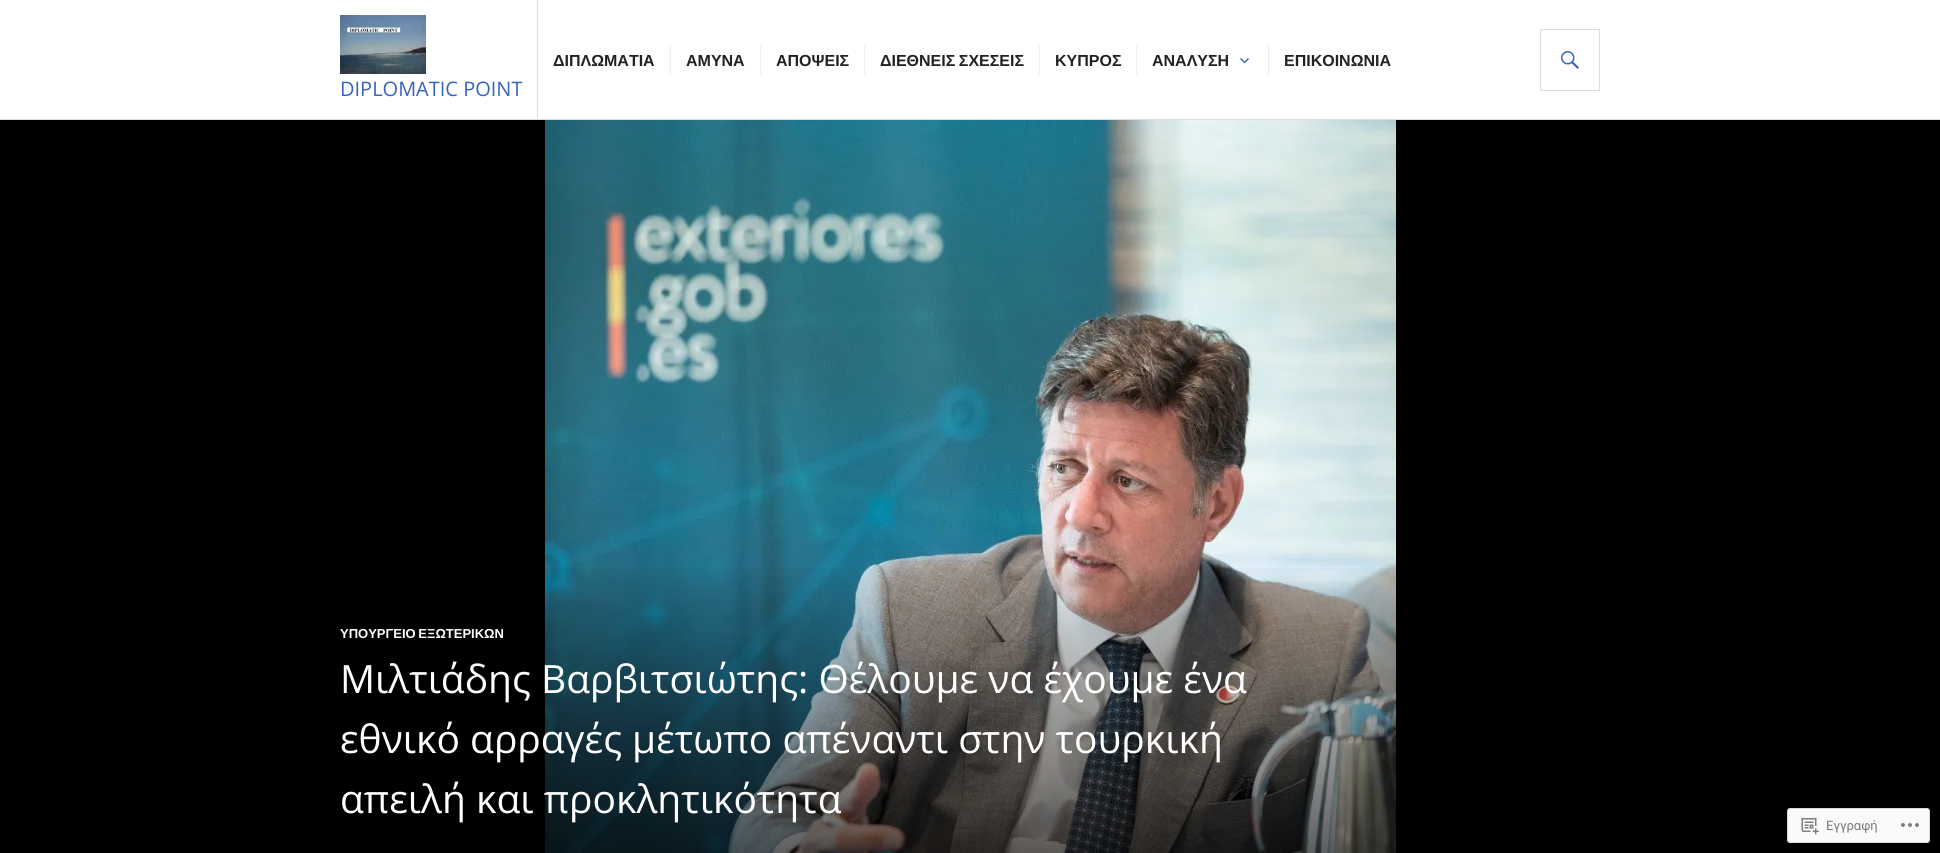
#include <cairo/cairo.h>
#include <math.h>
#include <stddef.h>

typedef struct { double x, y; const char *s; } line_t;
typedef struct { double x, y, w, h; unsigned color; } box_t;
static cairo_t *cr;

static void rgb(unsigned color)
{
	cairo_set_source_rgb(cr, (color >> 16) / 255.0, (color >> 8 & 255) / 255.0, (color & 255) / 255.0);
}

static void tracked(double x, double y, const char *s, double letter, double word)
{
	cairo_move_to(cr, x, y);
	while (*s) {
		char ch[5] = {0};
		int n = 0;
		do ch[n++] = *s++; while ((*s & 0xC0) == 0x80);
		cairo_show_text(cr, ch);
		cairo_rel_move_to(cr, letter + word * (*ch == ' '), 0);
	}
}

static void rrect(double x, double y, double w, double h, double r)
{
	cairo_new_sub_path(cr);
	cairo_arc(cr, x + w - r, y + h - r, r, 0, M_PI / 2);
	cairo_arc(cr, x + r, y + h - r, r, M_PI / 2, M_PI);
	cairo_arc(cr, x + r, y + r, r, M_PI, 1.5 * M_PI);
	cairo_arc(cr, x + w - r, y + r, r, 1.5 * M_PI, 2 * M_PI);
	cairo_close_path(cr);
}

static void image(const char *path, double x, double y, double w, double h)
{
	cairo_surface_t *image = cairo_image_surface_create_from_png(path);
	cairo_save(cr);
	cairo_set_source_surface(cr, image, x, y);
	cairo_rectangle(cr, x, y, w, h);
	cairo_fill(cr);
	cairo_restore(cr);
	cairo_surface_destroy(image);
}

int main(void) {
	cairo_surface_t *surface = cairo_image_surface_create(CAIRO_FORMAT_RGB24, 1940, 853);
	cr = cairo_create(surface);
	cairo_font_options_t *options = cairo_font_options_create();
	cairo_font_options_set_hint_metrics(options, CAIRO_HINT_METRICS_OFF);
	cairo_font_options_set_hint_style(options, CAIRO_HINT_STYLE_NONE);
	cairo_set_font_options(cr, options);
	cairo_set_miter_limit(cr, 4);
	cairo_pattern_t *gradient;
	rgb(0xffffff);
	cairo_paint(cr);
	{
		static const box_t items[] = {
			{0, 119, 1940, 1, 0xdddddd},
			{670, 45, 1, 30, 0xeeeeee},
			{760, 45, 1, 30, 0xeeeeee},
			{864, 45, 1, 30, 0xeeeeee},
			{1039, 45, 1, 30, 0xeeeeee},
			{1136, 45, 1, 30, 0xeeeeee},
		};
		for (size_t i = 0; i < sizeof items / sizeof *items; i++) {
			rgb(items[i].color);
			cairo_rectangle(cr, items[i].x, items[i].y, items[i].w, items[i].h);
			cairo_fill(cr);
		}
	}
	image("img/1.png", 1240, 58, 9, 6);
	cairo_rectangle(cr, 1268, 45, 1, 30);
	cairo_fill(cr);
	cairo_rectangle(cr, 1540.5, 29.5, 59, 61);
	rgb(0xdddddd);
	cairo_set_line_width(cr, 1);
	cairo_stroke(cr);
	image("img/2.png", 1561, 51, 18, 18);
	image("img/3.png", 340, 15, 86, 59);
	cairo_rectangle(cr, 537, 0, 1, 119);
	cairo_fill(cr);
	rgb(0x000000);
	cairo_rectangle(cr, 0, 120, 1940, 733);
	cairo_fill(cr);
	image("img/4.png", 545, 120, 851, 733);
	gradient = cairo_pattern_create_linear(970, 558, 970, 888);
	cairo_pattern_add_color_stop_rgba(gradient, 0, 0, 0, 0, 0);
	cairo_pattern_add_color_stop_rgba(gradient, 1, 0, 0, 0, 0.7);
	cairo_set_source(cr, gradient);
	cairo_pattern_destroy(gradient);
	cairo_rectangle(cr, 545, 568, 851, 285);
	cairo_fill(cr);
	rgb(0xfafafa);
	rrect(1787.5, 808.5, 142, 34, 2.5);
	cairo_fill_preserve(cr);
	rgb(0xd8d8da);
	cairo_stroke(cr);
	image("img/5.png", 1801, 818, 18, 17);
	image("img/6.png", 1901, 823, 18, 4);
	cairo_select_font_face(cr, "Liberation Sans", CAIRO_FONT_SLANT_NORMAL, CAIRO_FONT_WEIGHT_BOLD);
	cairo_set_font_size(cr, 16);
	rgb(0x222222);
	{
		static const line_t items[] = {
			{553, 66, "ΔΙΠΛΩΜΑΤΙΑ"},
			{686, 66, "ΑΜΥΝΑ"},
			{776, 66, "ΑΠΟΨΕΙΣ"},
		};
		for (size_t i = 0; i < sizeof items / sizeof *items; i++) {
			cairo_move_to(cr, items[i].x, items[i].y);
			cairo_show_text(cr, items[i].s);
		}
	}
	tracked(880, 66, "ΔΙΕΘΝΕΙΣ ΣΧΕΣΕΙΣ", 0, -1);
	{
		static const line_t items[] = {
			{1055, 66, "ΚΥΠΡΟΣ"},
			{1152, 66, "ΑΝΑΛΥΣΗ"},
			{1284, 66, "ΕΠΙΚΟΙΝΩΝΙΑ"},
		};
		for (size_t i = 0; i < sizeof items / sizeof *items; i++) {
			cairo_move_to(cr, items[i].x, items[i].y);
			cairo_show_text(cr, items[i].s);
		}
	}
	cairo_select_font_face(cr, "Open Sans", CAIRO_FONT_SLANT_NORMAL, CAIRO_FONT_WEIGHT_NORMAL);
	cairo_set_font_size(cr, 20);
	rgb(0x3863c1);
	cairo_move_to(cr, 340, 96);
	cairo_show_text(cr, "DIPLOMATIC POINT");
	cairo_select_font_face(cr, "Liberation Sans", CAIRO_FONT_SLANT_NORMAL, CAIRO_FONT_WEIGHT_BOLD);
	cairo_set_font_size(cr, 13);
	rgb(0xffffff);
	tracked(340, 638, "ΥΠΟΥΡΓΕΙΟ ΕΞΩΤΕΡΙΚΩΝ", 0, -1);
	cairo_select_font_face(cr, "Open Sans", CAIRO_FONT_SLANT_NORMAL, CAIRO_FONT_WEIGHT_NORMAL);
	cairo_set_font_size(cr, 39);
	{
		static const line_t items[] = {
			{340, 693, "Μιλτιάδης Βαρβιτσιώτης: Θέλουμε να έχουμε ένα"},
			{340, 753, "εθνικό αρραγές μέτωπο απέναντι στην τουρκική"},
			{340, 813, "απειλή και προκλητικότητα"},
		};
		for (size_t i = 0; i < sizeof items / sizeof *items; i++) {
			cairo_move_to(cr, items[i].x, items[i].y);
			cairo_show_text(cr, items[i].s);
		}
	}
	cairo_select_font_face(cr, "Roboto", CAIRO_FONT_SLANT_NORMAL, CAIRO_FONT_WEIGHT_NORMAL);
	cairo_set_font_size(cr, 13);
	rgb(0x767a7f);
	cairo_move_to(cr, 1826, 830);
	cairo_show_text(cr, "Εγγραφή");
	cairo_surface_write_to_png(surface, "page.png");
	cairo_font_options_destroy(options);
	cairo_destroy(cr);
	cairo_surface_destroy(surface);
	return 0;
}
